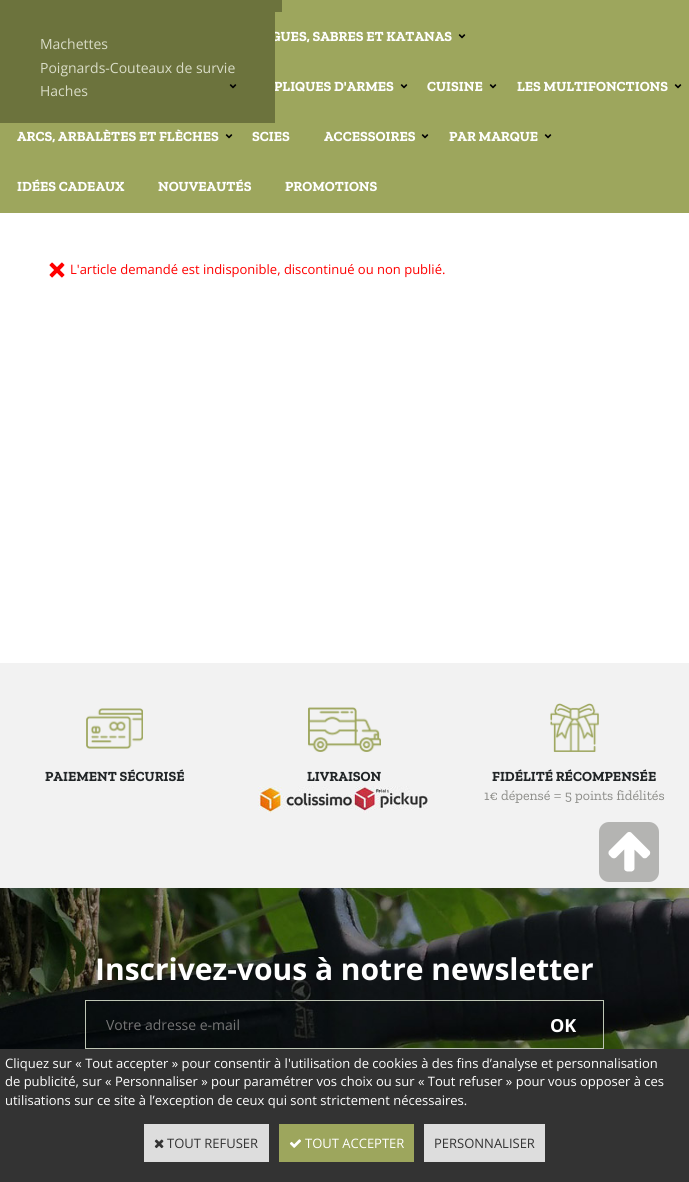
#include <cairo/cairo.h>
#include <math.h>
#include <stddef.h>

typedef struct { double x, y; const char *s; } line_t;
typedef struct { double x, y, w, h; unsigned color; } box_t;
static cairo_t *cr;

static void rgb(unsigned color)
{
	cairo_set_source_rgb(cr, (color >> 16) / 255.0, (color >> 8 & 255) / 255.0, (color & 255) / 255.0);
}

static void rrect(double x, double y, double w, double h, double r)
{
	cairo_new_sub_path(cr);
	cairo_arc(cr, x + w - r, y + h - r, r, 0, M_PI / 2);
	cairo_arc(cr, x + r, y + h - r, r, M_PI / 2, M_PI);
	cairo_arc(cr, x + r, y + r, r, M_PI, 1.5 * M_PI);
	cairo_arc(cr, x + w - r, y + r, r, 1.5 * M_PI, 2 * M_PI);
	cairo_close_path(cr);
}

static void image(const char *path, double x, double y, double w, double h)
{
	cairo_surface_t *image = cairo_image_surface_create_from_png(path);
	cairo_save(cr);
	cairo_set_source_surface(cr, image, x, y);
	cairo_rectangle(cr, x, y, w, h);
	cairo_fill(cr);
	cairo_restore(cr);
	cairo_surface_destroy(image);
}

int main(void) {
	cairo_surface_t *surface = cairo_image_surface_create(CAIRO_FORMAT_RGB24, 689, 1182);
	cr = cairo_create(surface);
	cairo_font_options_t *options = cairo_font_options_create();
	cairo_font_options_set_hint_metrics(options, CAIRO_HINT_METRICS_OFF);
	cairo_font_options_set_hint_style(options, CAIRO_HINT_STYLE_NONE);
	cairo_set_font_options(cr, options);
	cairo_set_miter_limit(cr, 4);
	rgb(0xffffff);
	cairo_paint(cr);
	rgb(0x9da65d);
	cairo_rectangle(cr, 0, 0, 689, 213);
	cairo_fill(cr);
	rgb(0x6c733d);
	cairo_rectangle(cr, 0, 0, 282, 12);
	cairo_fill(cr);
	image("img/1.png", 458, 34, 8, 5);
	image("img/1.png", 400, 84, 8, 5);
	image("img/1.png", 489, 84, 8, 5);
	image("img/1.png", 674, 84, 8, 5);
	image("img/1.png", 225, 134, 8, 5);
	image("img/1.png", 421, 134, 8, 5);
	image("img/1.png", 544, 134, 8, 5);
	image("img/3.png", 49, 262, 16, 16);
	rgb(0xf2f2f2);
	cairo_rectangle(cr, 0, 663, 689, 225);
	cairo_fill(cr);
	image("img/4.png", 86, 708, 57, 41);
	image("img/5.png", 308, 707, 73, 45);
	image("img/6.png", 258, 786, 170, 27);
	image("img/7.png", 550, 703, 49, 49);
	image("img/8.png", 0, 888, 689, 161);
	{
		static const box_t items[] = {
			{85, 1000, 519, 1, 0xbec6b5},
			{85, 1048, 440, 1, 0xbec6b5},
			{85, 1000, 1, 49, 0xbec6b5},
			{603, 1000, 1, 49, 0xbec6b5},
			{524, 1048, 80, 1, 0xbec6b5},
		};
		for (size_t i = 0; i < sizeof items / sizeof *items; i++) {
			rgb(items[i].color);
			cairo_rectangle(cr, items[i].x, items[i].y, items[i].w, items[i].h);
			cairo_fill(cr);
		}
	}
	rgb(0xb4b4b2);
	rrect(599, 822, 60, 60, 10);
	cairo_fill(cr);
	image("img/9.png", 608, 832, 43, 40);
	rgb(0x333333);
	cairo_rectangle(cr, 0, 1049, 689, 133);
	cairo_fill(cr);
	rgb(0xdddddd);
	cairo_rectangle(cr, 144, 1124, 125, 38);
	cairo_fill(cr);
	image("img/10.png", 154, 1139, 10, 10);
	rgb(0x9da65d);
	cairo_rectangle(cr, 279, 1124, 135, 38);
	cairo_fill(cr);
	image("img/11.png", 289, 1139, 12, 9);
	rgb(0xdddddd);
	cairo_rectangle(cr, 424, 1124, 121, 38);
	cairo_fill(cr);
	cairo_select_font_face(cr, "Zilla Slab", CAIRO_FONT_SLANT_NORMAL, CAIRO_FONT_WEIGHT_BOLD);
	cairo_set_font_size(cr, 14);
	rgb(0xffffff);
	cairo_move_to(cr, 271, 41);
	cairo_show_text(cr, "GUES, SABRES ET KATANAS");
	cairo_move_to(cr, 274, 91);
	cairo_show_text(cr, "PLIQUES D'ARMES");
	rgb(0x6c733d);
	cairo_rectangle(cr, 0, 12, 275, 111);
	cairo_fill(cr);
	image("img/2.png", 229, 84, 8, 5);
	cairo_select_font_face(cr, "Open Sans", CAIRO_FONT_SLANT_NORMAL, CAIRO_FONT_WEIGHT_NORMAL);
	rgb(0xd9dcc7);
	{
		static const line_t items[] = {
			{40, 96, "Haches"},
			{40, 73, "Poignards-Couteaux de survie"},
			{40, 49, "Machettes"},
		};
		for (size_t i = 0; i < sizeof items / sizeof *items; i++) {
			cairo_move_to(cr, items[i].x, items[i].y);
			cairo_show_text(cr, items[i].s);
		}
	}
	cairo_select_font_face(cr, "Zilla Slab", CAIRO_FONT_SLANT_NORMAL, CAIRO_FONT_WEIGHT_BOLD);
	rgb(0xffffff);
	{
		static const line_t items[] = {
			{427, 91, "CUISINE"},
			{517, 91, "LES MULTIFONCTIONS"},
			{17, 141, "ARCS, ARBALÈTES ET FLÈCHES"},
			{252, 141, "SCIES"},
			{324, 141, "ACCESSOIRES"},
			{449, 141, "PAR MARQUE"},
			{17, 191, "IDÉES CADEAUX"},
			{158, 191, "NOUVEAUTÉS"},
			{285, 191, "PROMOTIONS"},
		};
		for (size_t i = 0; i < sizeof items / sizeof *items; i++) {
			cairo_move_to(cr, items[i].x, items[i].y);
			cairo_show_text(cr, items[i].s);
		}
	}
	cairo_select_font_face(cr, "Open Sans", CAIRO_FONT_SLANT_NORMAL, CAIRO_FONT_WEIGHT_NORMAL);
	cairo_set_font_size(cr, 13);
	rgb(0xff0000);
	cairo_move_to(cr, 70, 274);
	cairo_show_text(cr, "L'article demandé est indisponible, discontinué ou non publié.");
	cairo_select_font_face(cr, "Zilla Slab", CAIRO_FONT_SLANT_NORMAL, CAIRO_FONT_WEIGHT_BOLD);
	cairo_set_font_size(cr, 14);
	rgb(0x202426);
	{
		static const line_t items[] = {
			{45, 781, "PAIEMENT SÉCURISÉ"},
			{307, 781, "LIVRAISON"},
			{492, 781, "FIDÉLITÉ RÉCOMPENSÉE"},
		};
		for (size_t i = 0; i < sizeof items / sizeof *items; i++) {
			cairo_move_to(cr, items[i].x, items[i].y);
			cairo_show_text(cr, items[i].s);
		}
	}
	cairo_select_font_face(cr, "Zilla Slab", CAIRO_FONT_SLANT_NORMAL, CAIRO_FONT_WEIGHT_NORMAL);
	rgb(0x8c8c88);
	cairo_move_to(cr, 484, 800);
	cairo_show_text(cr, "1€ dépensé = 5 points fidélités");
	cairo_select_font_face(cr, "Open Sans", CAIRO_FONT_SLANT_NORMAL, CAIRO_FONT_WEIGHT_BOLD);
	cairo_set_font_size(cr, 30);
	rgb(0xffffff);
	cairo_move_to(cr, 95, 980);
	cairo_show_text(cr, "Inscrivez-vous à notre newsletter");
	cairo_select_font_face(cr, "Open Sans", CAIRO_FONT_SLANT_NORMAL, CAIRO_FONT_WEIGHT_NORMAL);
	cairo_set_font_size(cr, 14);
	rgb(0x757575);
	cairo_move_to(cr, 106, 1030);
	cairo_show_text(cr, "Votre adresse e-mail");
	cairo_select_font_face(cr, "Open Sans", CAIRO_FONT_SLANT_NORMAL, CAIRO_FONT_WEIGHT_BOLD);
	cairo_set_font_size(cr, 18);
	rgb(0xffffff);
	cairo_move_to(cr, 550, 1032);
	cairo_show_text(cr, "OK");
	cairo_select_font_face(cr, "Open Sans", CAIRO_FONT_SLANT_NORMAL, CAIRO_FONT_WEIGHT_NORMAL);
	cairo_set_font_size(cr, 13);
	{
		static const line_t items[] = {
			{5, 1068, "Cliquez sur « Tout accepter » pour consentir à l'utilisation de cookies à des fins d’analyse et personnalisation"},
			{5, 1086, "de publicité, sur « Personnaliser » pour paramétrer vos choix ou sur « Tout refuser » pour vous opposer à ces"},
			{5, 1105, "utilisations sur ce site à l’exception de ceux qui sont strictement nécessaires."},
		};
		for (size_t i = 0; i < sizeof items / sizeof *items; i++) {
			cairo_move_to(cr, items[i].x, items[i].y);
			cairo_show_text(cr, items[i].s);
		}
	}
	rgb(0x333333);
	cairo_move_to(cr, 167, 1148);
	cairo_show_text(cr, "TOUT REFUSER");
	rgb(0xffffff);
	cairo_move_to(cr, 305, 1148);
	cairo_show_text(cr, "TOUT ACCEPTER");
	rgb(0x333333);
	cairo_move_to(cr, 434, 1148);
	cairo_show_text(cr, "PERSONNALISER");
	cairo_surface_write_to_png(surface, "page.png");
	cairo_font_options_destroy(options);
	cairo_destroy(cr);
	cairo_surface_destroy(surface);
	return 0;
}
